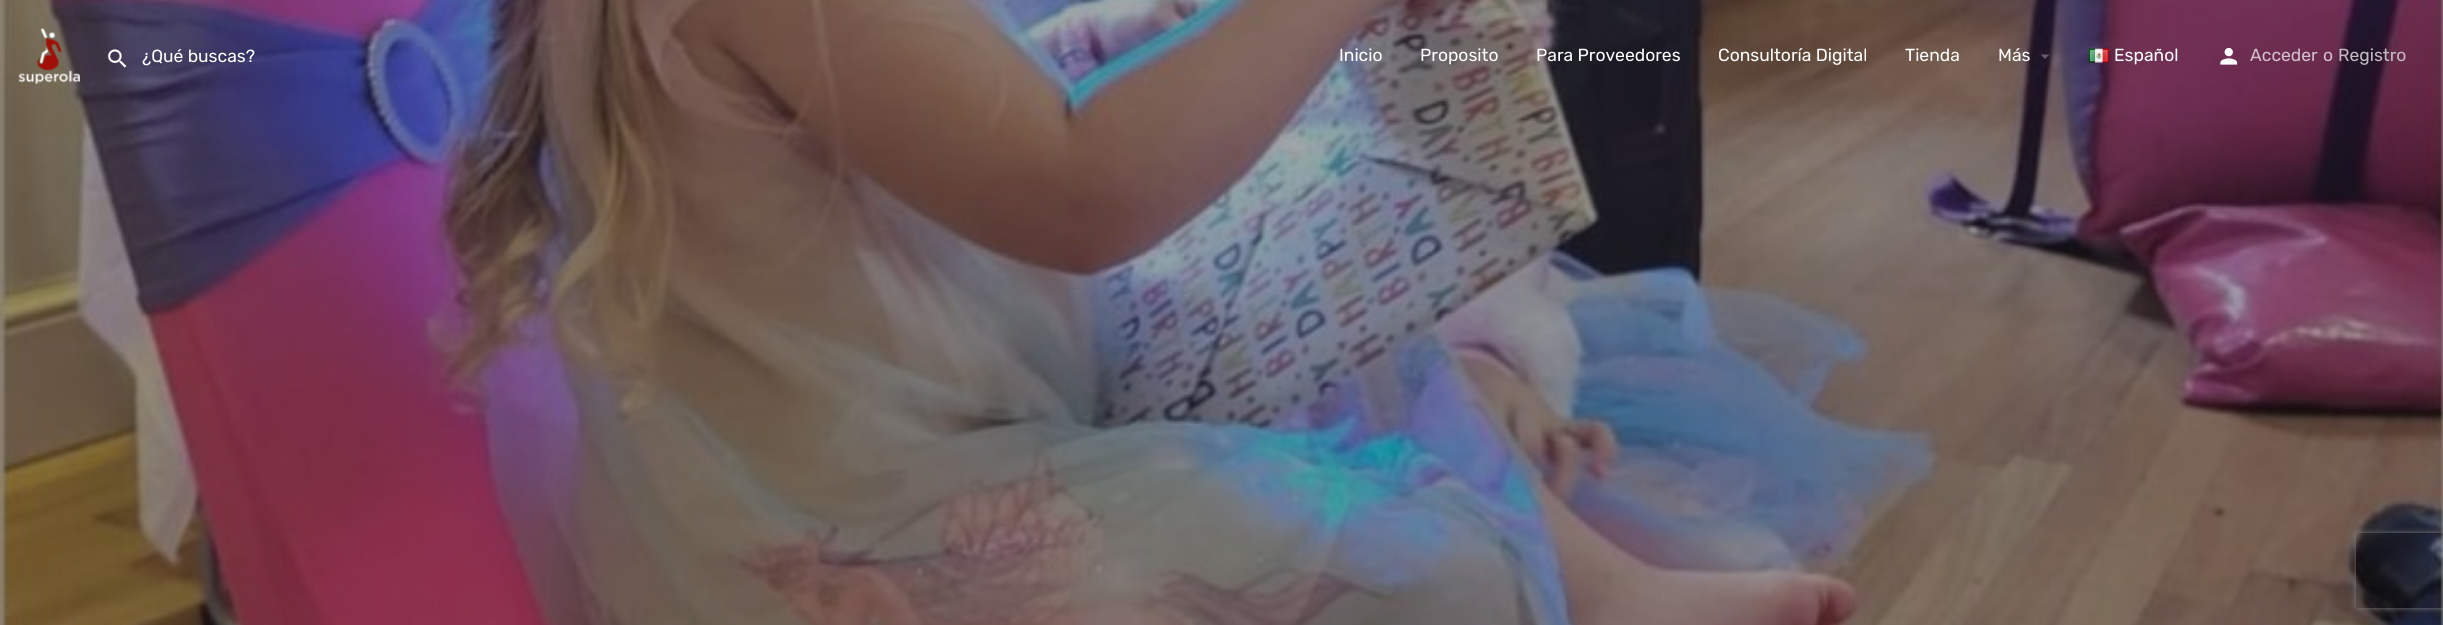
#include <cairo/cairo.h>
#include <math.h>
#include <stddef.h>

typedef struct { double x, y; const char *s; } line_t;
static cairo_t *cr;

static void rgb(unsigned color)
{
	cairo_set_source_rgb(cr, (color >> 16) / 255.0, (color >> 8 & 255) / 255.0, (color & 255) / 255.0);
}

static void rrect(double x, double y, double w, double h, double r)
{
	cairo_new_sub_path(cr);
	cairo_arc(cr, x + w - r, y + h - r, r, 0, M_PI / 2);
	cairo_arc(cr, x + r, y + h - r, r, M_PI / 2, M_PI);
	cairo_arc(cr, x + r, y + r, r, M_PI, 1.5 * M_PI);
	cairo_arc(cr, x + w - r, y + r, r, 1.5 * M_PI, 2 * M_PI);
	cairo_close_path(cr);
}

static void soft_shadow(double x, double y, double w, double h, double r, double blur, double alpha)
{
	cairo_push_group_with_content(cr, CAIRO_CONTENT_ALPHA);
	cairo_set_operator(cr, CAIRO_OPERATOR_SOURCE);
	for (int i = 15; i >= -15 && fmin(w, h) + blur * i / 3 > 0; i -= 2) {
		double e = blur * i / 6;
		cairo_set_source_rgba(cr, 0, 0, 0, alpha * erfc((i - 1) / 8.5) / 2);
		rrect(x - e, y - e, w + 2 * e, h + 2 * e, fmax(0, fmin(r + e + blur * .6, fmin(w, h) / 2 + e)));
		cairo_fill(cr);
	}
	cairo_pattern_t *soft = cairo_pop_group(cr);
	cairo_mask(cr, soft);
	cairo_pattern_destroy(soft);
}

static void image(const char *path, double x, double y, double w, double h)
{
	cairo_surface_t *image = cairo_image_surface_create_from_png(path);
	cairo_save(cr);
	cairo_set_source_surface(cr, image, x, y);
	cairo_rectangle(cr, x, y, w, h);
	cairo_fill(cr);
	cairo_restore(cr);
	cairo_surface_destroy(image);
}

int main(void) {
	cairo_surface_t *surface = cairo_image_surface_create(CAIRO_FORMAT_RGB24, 2443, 625);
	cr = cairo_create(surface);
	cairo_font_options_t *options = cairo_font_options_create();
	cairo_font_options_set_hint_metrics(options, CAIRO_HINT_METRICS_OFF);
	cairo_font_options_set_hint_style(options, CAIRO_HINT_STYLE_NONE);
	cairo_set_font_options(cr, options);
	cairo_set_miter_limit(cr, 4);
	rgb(0xffffff);
	cairo_paint(cr);
	image("img/1.png", 0, 0, 2443, 625);
	image("img/2.png", 18, 28, 62, 56);
	image("img/3.png", 108, 49, 19, 19);
	cairo_set_source_rgba(cr, 1, 1, 1, 0.3);
	cairo_new_path(cr);
	cairo_move_to(cr, 2040.5, 54.5);
	cairo_line_to(cr, 2049.5, 54.5);
	cairo_line_to(cr, 2045, 59);
	cairo_close_path(cr);
	cairo_fill(cr);
	image("img/4.png", 2088, 48, 21, 15);
	image("img/5.png", 2220, 47, 18, 18);
	cairo_save(cr);
	cairo_set_fill_rule(cr, CAIRO_FILL_RULE_EVEN_ODD);
	cairo_new_path(cr);
	cairo_move_to(cr, 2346, 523);
	cairo_line_to(cr, 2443, 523);
	cairo_line_to(cr, 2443, 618);
	cairo_line_to(cr, 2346, 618);
	cairo_close_path(cr);
	cairo_move_to(cr, 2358.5, 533);
	cairo_line_to(cr, 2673.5, 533);
	cairo_curve_to(cr, 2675, 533, 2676, 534, 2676, 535.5);
	cairo_line_to(cr, 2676, 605.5);
	cairo_curve_to(cr, 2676, 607, 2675, 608, 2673.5, 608);
	cairo_line_to(cr, 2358.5, 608);
	cairo_curve_to(cr, 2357, 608, 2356, 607, 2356, 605.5);
	cairo_line_to(cr, 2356, 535.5);
	cairo_curve_to(cr, 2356, 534, 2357, 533, 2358.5, 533);
	cairo_close_path(cr);
	cairo_clip(cr);
	rgb(0x808080);
	soft_shadow(2356, 533, 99, 75, 2.5, 3, 1);
	cairo_restore(cr);
	cairo_select_font_face(cr, "Rubik", CAIRO_FONT_SLANT_NORMAL, CAIRO_FONT_WEIGHT_NORMAL);
	cairo_set_font_size(cr, 17.5);
	rgb(0xffffff);
	{
		static const line_t items[] = {
			{142, 62, "¿Qué buscas?"},
			{1339, 61, "Inicio"},
			{1420, 61, "Proposito"},
			{1536, 61, "Para Proveedores"},
			{1718, 61, "Consultoría Digital"},
			{1905, 61, "Tienda"},
			{1998, 61, "Más"},
			{2114, 61, "Español"},
		};
		for (size_t i = 0; i < sizeof items / sizeof *items; i++) {
			cairo_move_to(cr, items[i].x, items[i].y);
			cairo_show_text(cr, items[i].s);
		}
	}
	rgb(0xd3c0ca);
	cairo_move_to(cr, 2250, 61);
	cairo_show_text(cr, "Acceder");
	cairo_move_to(cr, 2323, 61);
	cairo_show_text(cr, "o");
	rgb(0xc3bac2);
	cairo_move_to(cr, 2338, 61);
	cairo_show_text(cr, "Registro");
	cairo_surface_write_to_png(surface, "page.png");
	cairo_font_options_destroy(options);
	cairo_destroy(cr);
	cairo_surface_destroy(surface);
	return 0;
}
